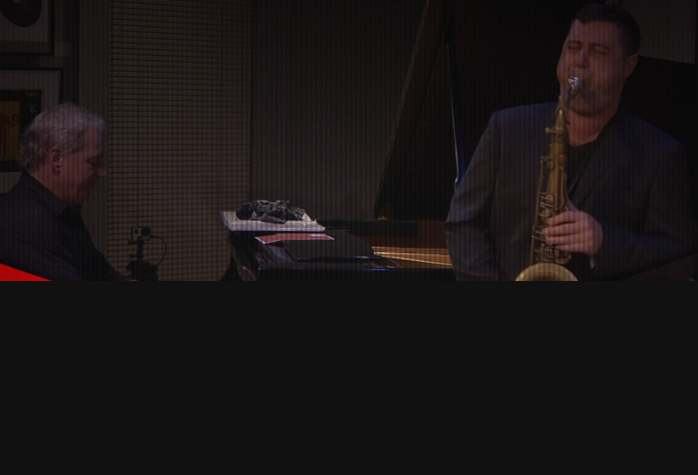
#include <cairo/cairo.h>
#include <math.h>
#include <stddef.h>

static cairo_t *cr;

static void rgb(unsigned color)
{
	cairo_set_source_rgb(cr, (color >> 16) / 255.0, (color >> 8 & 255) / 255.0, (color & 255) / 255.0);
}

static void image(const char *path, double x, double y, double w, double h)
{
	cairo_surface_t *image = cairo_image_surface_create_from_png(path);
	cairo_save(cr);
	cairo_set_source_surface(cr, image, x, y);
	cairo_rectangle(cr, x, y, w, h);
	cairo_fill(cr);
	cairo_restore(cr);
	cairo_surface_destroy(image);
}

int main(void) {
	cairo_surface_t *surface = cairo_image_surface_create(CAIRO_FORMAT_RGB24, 698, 475);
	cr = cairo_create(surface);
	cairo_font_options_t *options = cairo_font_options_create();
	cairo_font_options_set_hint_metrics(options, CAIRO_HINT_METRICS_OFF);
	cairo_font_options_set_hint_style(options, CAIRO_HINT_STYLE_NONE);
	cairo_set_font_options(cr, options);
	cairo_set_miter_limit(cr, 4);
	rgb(0x111111);
	cairo_paint(cr);
	image("img/1.png", 0, 0, 698, 281);
	cairo_surface_write_to_png(surface, "page.png");
	cairo_font_options_destroy(options);
	cairo_destroy(cr);
	cairo_surface_destroy(surface);
	return 0;
}
